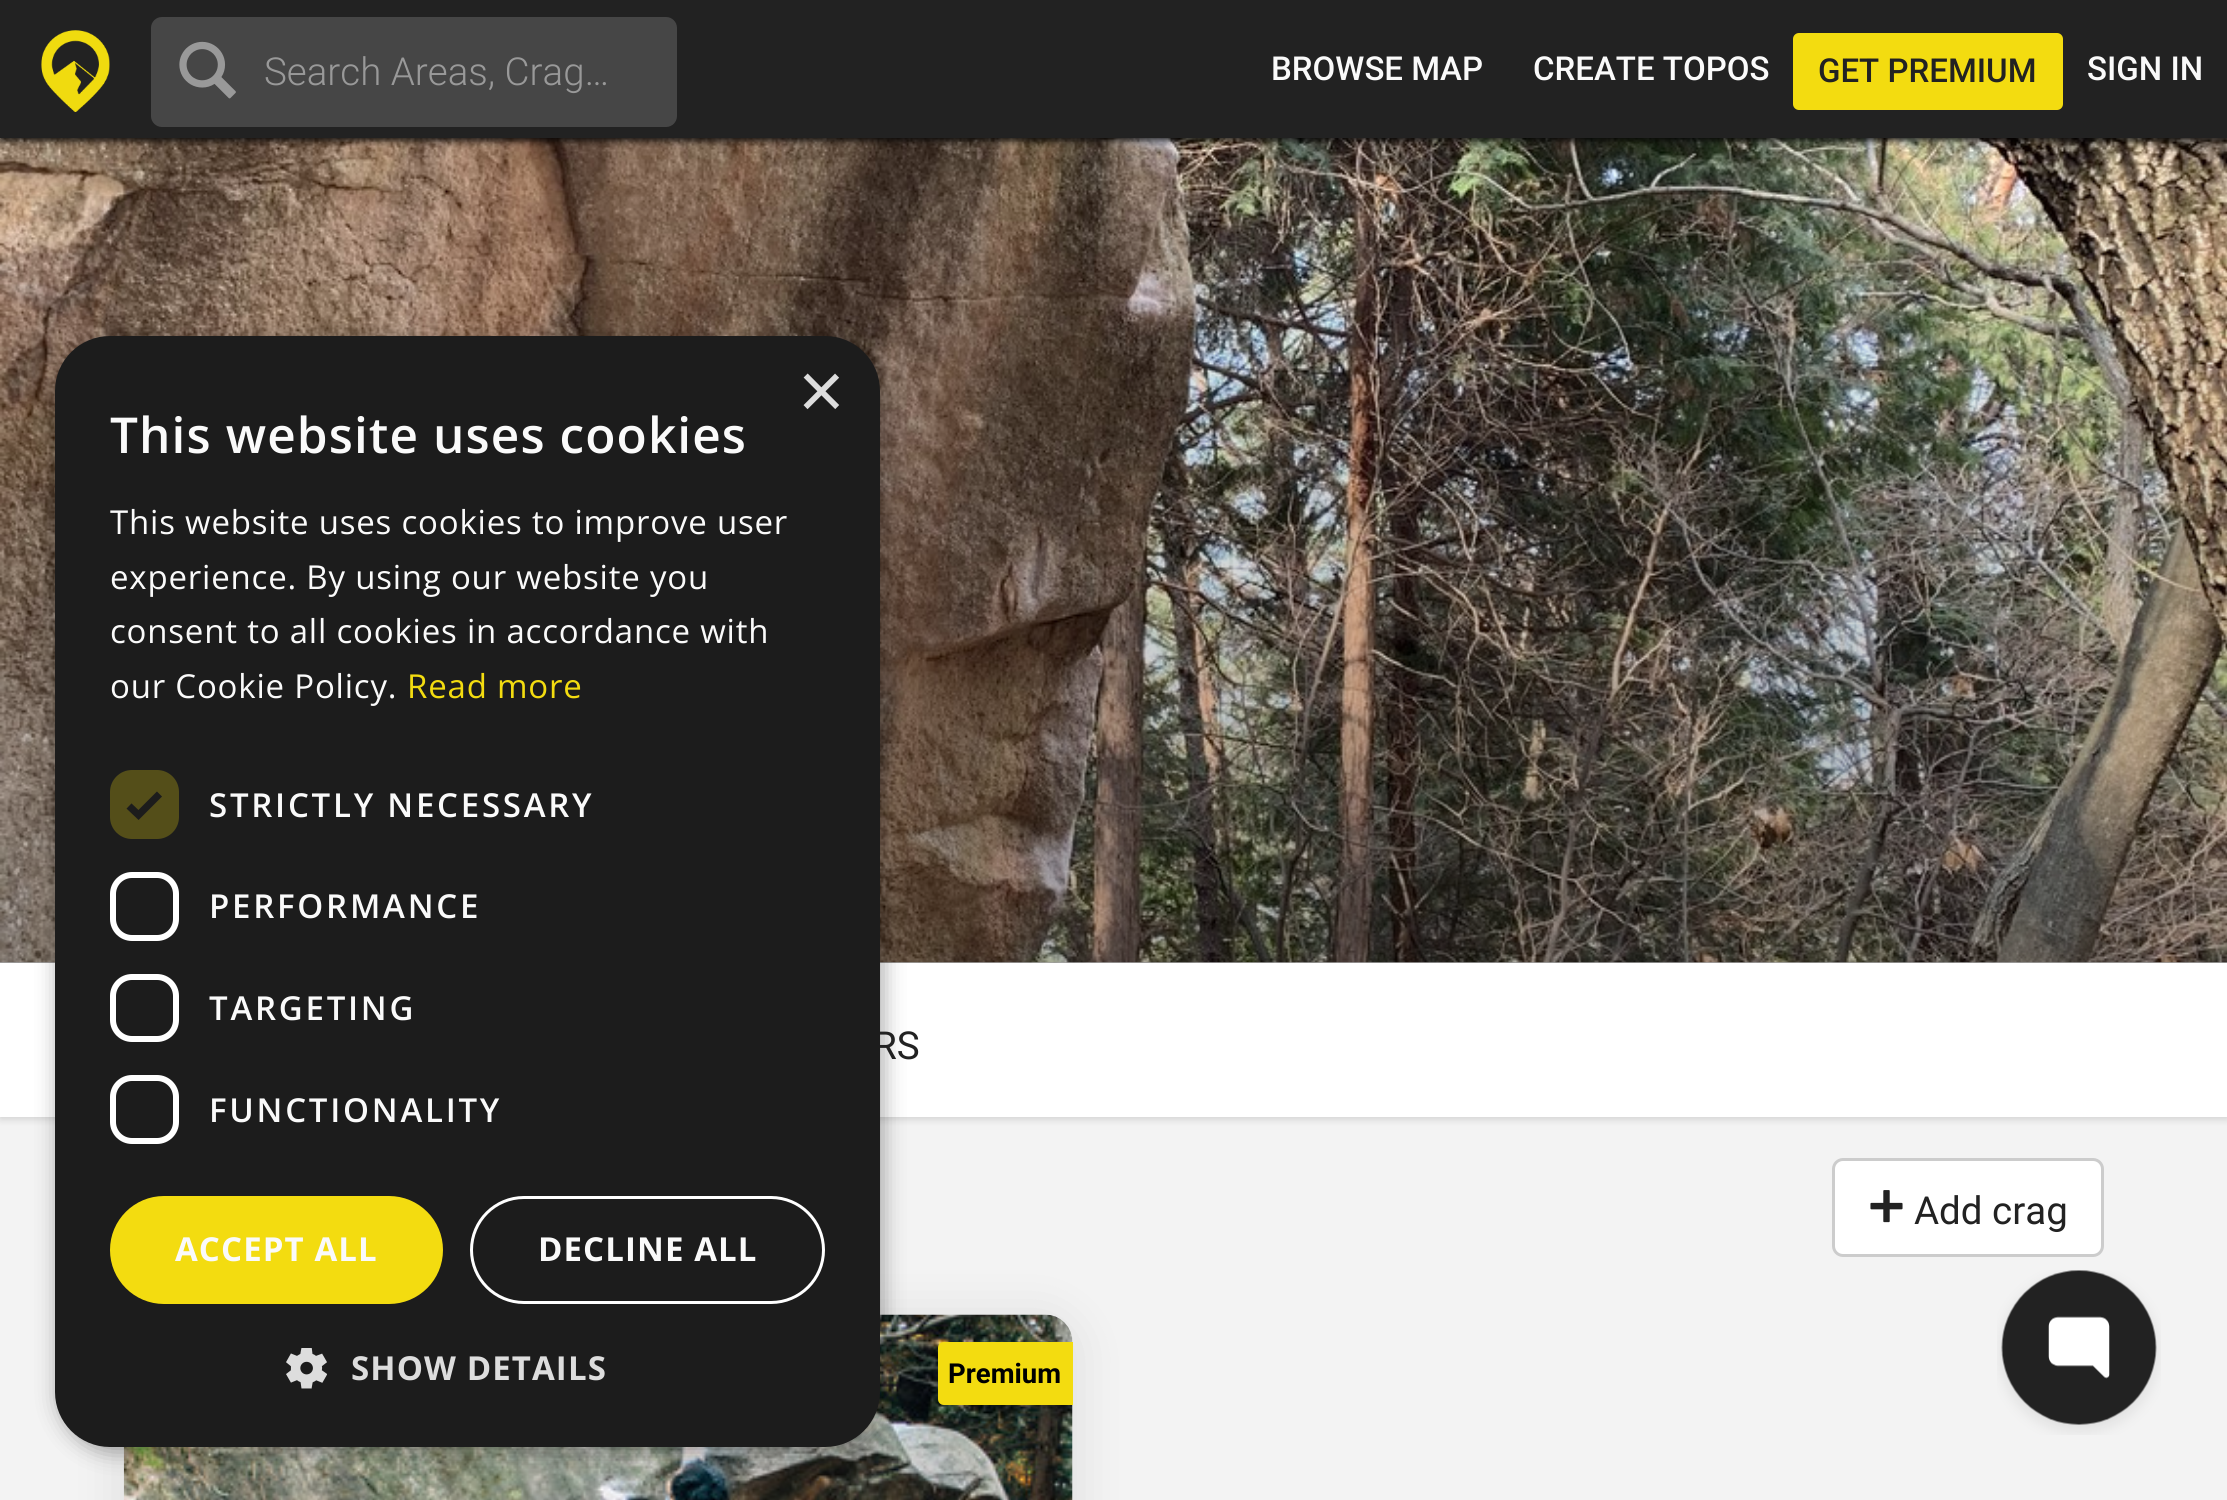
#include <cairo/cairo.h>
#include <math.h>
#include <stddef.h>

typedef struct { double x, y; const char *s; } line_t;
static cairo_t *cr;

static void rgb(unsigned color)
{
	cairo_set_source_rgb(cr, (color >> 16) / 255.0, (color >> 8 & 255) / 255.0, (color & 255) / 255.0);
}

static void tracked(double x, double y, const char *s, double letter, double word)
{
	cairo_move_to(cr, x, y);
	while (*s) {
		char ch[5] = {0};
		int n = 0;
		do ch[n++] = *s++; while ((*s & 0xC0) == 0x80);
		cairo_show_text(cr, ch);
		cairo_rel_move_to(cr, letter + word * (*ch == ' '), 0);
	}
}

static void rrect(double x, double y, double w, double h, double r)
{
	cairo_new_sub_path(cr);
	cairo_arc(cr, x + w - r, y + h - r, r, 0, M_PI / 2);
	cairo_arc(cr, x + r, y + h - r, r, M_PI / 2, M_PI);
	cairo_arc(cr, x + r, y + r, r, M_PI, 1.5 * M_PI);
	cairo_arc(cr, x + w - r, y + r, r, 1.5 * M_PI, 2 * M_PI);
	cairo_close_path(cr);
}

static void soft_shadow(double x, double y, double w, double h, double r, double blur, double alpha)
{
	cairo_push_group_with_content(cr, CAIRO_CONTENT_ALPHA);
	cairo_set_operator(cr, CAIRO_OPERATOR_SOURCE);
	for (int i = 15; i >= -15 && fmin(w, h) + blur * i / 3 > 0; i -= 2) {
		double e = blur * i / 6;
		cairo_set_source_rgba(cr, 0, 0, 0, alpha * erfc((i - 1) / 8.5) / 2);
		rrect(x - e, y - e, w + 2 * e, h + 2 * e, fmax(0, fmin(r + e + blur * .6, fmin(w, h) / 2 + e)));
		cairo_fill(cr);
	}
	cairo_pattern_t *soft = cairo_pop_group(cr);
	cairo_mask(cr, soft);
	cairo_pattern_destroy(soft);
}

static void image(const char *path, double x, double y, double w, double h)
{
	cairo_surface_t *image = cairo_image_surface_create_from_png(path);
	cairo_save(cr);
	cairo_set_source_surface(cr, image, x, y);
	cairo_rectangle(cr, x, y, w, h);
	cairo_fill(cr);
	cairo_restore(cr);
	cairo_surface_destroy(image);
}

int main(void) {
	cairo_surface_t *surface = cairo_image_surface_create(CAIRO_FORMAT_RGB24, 2227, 1500);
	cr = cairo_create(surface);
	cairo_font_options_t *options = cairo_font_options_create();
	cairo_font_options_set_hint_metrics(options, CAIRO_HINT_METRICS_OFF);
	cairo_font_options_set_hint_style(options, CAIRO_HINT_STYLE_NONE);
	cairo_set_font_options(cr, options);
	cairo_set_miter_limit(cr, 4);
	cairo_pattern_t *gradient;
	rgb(0xf3f3f3);
	cairo_paint(cr);
	image("img/3.png", 0, 138, 2227, 825);
	rgb(0x010101);
	soft_shadow(0, 3, 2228, 137, 0, 4, 1);
	rgb(0x222222);
	cairo_rectangle(cr, 0, 0, 2227, 138);
	cairo_fill(cr);
	image("img/1.png", 41, 30, 69, 82);
	rgb(0x464646);
	rrect(151, 17, 526, 110, 11);
	cairo_fill(cr);
	image("img/2.png", 179, 41, 57, 58);
	rgb(0xf3dc10);
	rrect(1793, 33, 270, 77, 6);
	cairo_fill(cr);
	gradient = cairo_pattern_create_linear(1114, 137, 1114, 963);
	cairo_pattern_add_color_stop_rgba(gradient, 0, 0, 0, 0, 0);
	cairo_pattern_add_color_stop_rgba(gradient, 1, 0, 0, 0, 0.3);
	cairo_set_source(cr, gradient);
	cairo_pattern_destroy(gradient);
	cairo_rectangle(cr, 0, 196, 2227, 767);
	cairo_fill(cr);
	rgb(0x000000);
	soft_shadow(0, 965, 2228, 154, 0, 4, 0.15);
	rgb(0xffffff);
	cairo_rectangle(cr, 0, 963, 2227, 154);
	cairo_fill(cr);
	rrect(1833.5, 1159.5, 269, 96, 9.5);
	cairo_fill_preserve(cr);
	rgb(0xcccccc);
	cairo_set_line_width(cr, 3);
	cairo_stroke(cr);
	image("img/4.png", 1870, 1190, 33, 33);
	rgb(0x000000);
	soft_shadow(124, 1320, 949, 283, 28, 25, 0.1);
	image("img/5.png", 123, 1314, 950, 186);
	rgb(0xf3dc10);
	cairo_new_path(cr);
	cairo_move_to(cr, 944, 1342);
	cairo_line_to(cr, 1073, 1342);
	cairo_line_to(cr, 1073, 1405);
	cairo_line_to(cr, 944, 1405);
	cairo_curve_to(cr, 940.5, 1405, 938, 1402.5, 938, 1399);
	cairo_line_to(cr, 938, 1348);
	cairo_curve_to(cr, 938, 1344.5, 940.5, 1342, 944, 1342);
	cairo_close_path(cr);
	cairo_fill(cr);
	rgb(0x000000);
	soft_shadow(58, 341, 825, 1111, 55, 11, 0.35);
	image("img/7.png", 1997, 1270, 164, 165);
	cairo_select_font_face(cr, "Roboto Light", CAIRO_FONT_SLANT_NORMAL, CAIRO_FONT_WEIGHT_NORMAL);
	cairo_set_font_size(cr, 38.5);
	rgb(0x999999);
	cairo_move_to(cr, 264, 85);
	cairo_show_text(cr, "Search Areas, Crag…");
	cairo_select_font_face(cr, "Roboto Medium", CAIRO_FONT_SLANT_NORMAL, CAIRO_FONT_WEIGHT_NORMAL);
	cairo_set_font_size(cr, 33);
	rgb(0xfafafa);
	cairo_move_to(cr, 1271, 80);
	cairo_show_text(cr, "BROWSE MAP");
	cairo_move_to(cr, 1533, 80);
	cairo_show_text(cr, "CREATE TOPOS");
	rgb(0x222222);
	cairo_move_to(cr, 1818, 82);
	cairo_show_text(cr, "GET PREMIUM");
	rgb(0xfafafa);
	cairo_move_to(cr, 2087, 80);
	cairo_show_text(cr, "SIGN IN");
	cairo_select_font_face(cr, "Roboto", CAIRO_FONT_SLANT_NORMAL, CAIRO_FONT_WEIGHT_NORMAL);
	cairo_set_font_size(cr, 38.5);
	rgb(0x222222);
	cairo_move_to(cr, 873, 1059);
	cairo_show_text(cr, "RS");
	cairo_move_to(cr, 1914, 1224);
	cairo_show_text(cr, "Add crag");
	cairo_select_font_face(cr, "Roboto", CAIRO_FONT_SLANT_NORMAL, CAIRO_FONT_WEIGHT_BOLD);
	cairo_set_font_size(cr, 27.5);
	rgb(0x000000);
	cairo_move_to(cr, 948, 1383);
	cairo_show_text(cr, "Premium");
	rgb(0x1c1c1c);
	rrect(55, 336, 825, 1111, 55);
	cairo_fill(cr);
	cairo_select_font_face(cr, "Liberation Sans", CAIRO_FONT_SLANT_NORMAL, CAIRO_FONT_WEIGHT_NORMAL);
	cairo_set_font_size(cr, 80);
	rgb(0xdddddd);
	cairo_move_to(cr, 798, 418);
	cairo_show_text(cr, "×");
	cairo_select_font_face(cr, "Open Sans SemiBold", CAIRO_FONT_SLANT_NORMAL, CAIRO_FONT_WEIGHT_NORMAL);
	cairo_set_font_size(cr, 49.5);
	rgb(0xfafafa);
	tracked(110, 453, "This website uses cookies", 1.1, 0);
	cairo_select_font_face(cr, "Open Sans", CAIRO_FONT_SLANT_NORMAL, CAIRO_FONT_WEIGHT_NORMAL);
	cairo_set_font_size(cr, 33);
	{
		static const line_t items[] = {
			{110, 534, "This website uses cookies to improve user"},
			{110, 589, "experience. By using our website you"},
			{110, 643, "consent to all cookies in accordance with"},
			{110, 698, "our Cookie Policy."},
		};
		for (size_t i = 0; i < sizeof items / sizeof *items; i++) {
			tracked(items[i].x, items[i].y, items[i].s, 0.8, 0);
		}
	}
	rgb(0xf3dc10);
	tracked(407, 698, "Read more", 0.8, 0);
	rgb(0x544e19);
	rrect(110, 770, 69, 69, 22);
	cairo_fill(cr);
	cairo_new_path(cr);
	cairo_move_to(cr, 129, 806);
	cairo_line_to(cr, 138.5, 815);
	cairo_line_to(cr, 159.5, 794);
	rgb(0x1c1c1c);
	cairo_set_line_width(cr, 7.2);
	cairo_stroke(cr);
	cairo_select_font_face(cr, "Open Sans SemiBold", CAIRO_FONT_SLANT_NORMAL, CAIRO_FONT_WEIGHT_NORMAL);
	rgb(0xfafafa);
	tracked(209, 817, "STRICTLY NECESSARY", 2.75, 0);
	rrect(113, 875, 63, 63, 19);
	rgb(0xffffff);
	cairo_set_line_width(cr, 6);
	cairo_stroke(cr);
	rgb(0xfafafa);
	tracked(209, 918, "PERFORMANCE", 2.75, 0);
	rrect(113, 977, 63, 62, 19);
	rgb(0xffffff);
	cairo_stroke(cr);
	rgb(0xfafafa);
	tracked(209, 1020, "TARGETING", 2.75, 0);
	rrect(113, 1078, 63, 63, 19);
	rgb(0xffffff);
	cairo_stroke(cr);
	rgb(0xfafafa);
	tracked(209, 1122, "FUNCTIONALITY", 2.75, 0);
	rgb(0xf3dc10);
	rrect(110, 1196, 333, 108, 54);
	cairo_fill(cr);
	cairo_select_font_face(cr, "Open Sans", CAIRO_FONT_SLANT_NORMAL, CAIRO_FONT_WEIGHT_BOLD);
	rgb(0xfafafa);
	tracked(175, 1261, "ACCEPT ALL", 1.1, 0);
	rrect(471.5, 1197.5, 352, 105, 52.5);
	rgb(0xffffff);
	cairo_set_line_width(cr, 3);
	cairo_stroke(cr);
	rgb(0xfafafa);
	tracked(538, 1261, "DECLINE ALL", 1.1, 0);
	image("img/6.png", 286, 1348, 41, 41);
	rgb(0xdddddd);
	tracked(351, 1380, "SHOW DETAILS", 1.1, 0);
	cairo_surface_write_to_png(surface, "page.png");
	cairo_font_options_destroy(options);
	cairo_destroy(cr);
	cairo_surface_destroy(surface);
	return 0;
}
